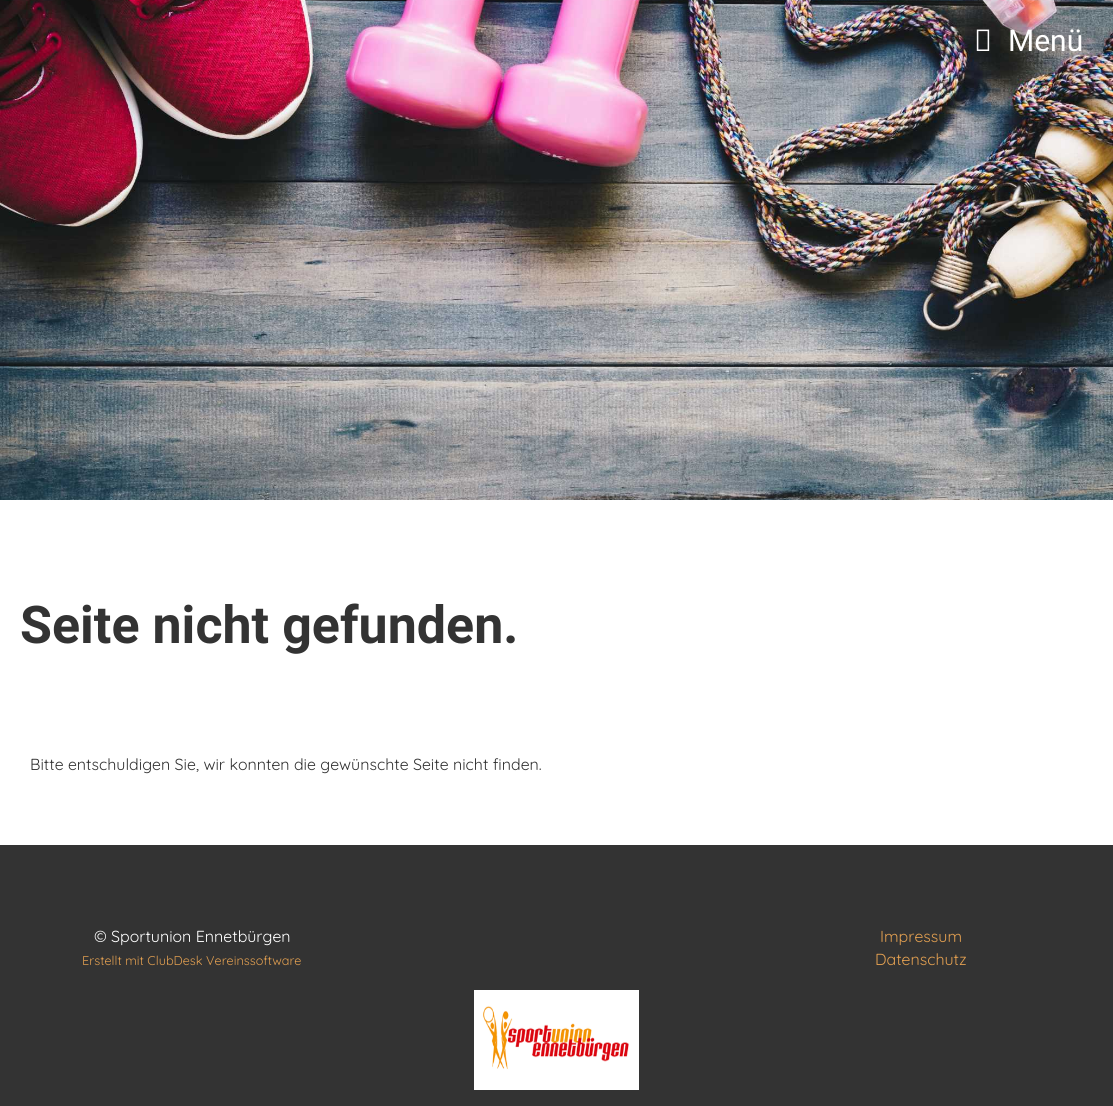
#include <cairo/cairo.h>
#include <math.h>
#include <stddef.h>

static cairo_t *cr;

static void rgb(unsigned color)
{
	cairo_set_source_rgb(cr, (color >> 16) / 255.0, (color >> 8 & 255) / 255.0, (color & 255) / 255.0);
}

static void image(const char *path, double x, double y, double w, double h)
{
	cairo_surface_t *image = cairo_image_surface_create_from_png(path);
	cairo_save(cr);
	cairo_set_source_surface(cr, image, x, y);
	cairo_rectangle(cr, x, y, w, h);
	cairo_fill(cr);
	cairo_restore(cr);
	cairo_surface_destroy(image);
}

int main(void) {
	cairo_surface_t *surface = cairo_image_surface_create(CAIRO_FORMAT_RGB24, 1113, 1106);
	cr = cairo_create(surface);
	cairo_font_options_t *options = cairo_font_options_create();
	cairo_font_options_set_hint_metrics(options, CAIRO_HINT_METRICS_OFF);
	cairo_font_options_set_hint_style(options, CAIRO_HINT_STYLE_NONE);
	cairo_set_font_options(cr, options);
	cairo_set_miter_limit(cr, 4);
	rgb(0xffffff);
	cairo_paint(cr);
	image("img/2.png", 0, 0, 1113, 500);
	image("img/1.png", 976, 29, 14, 22);
	rgb(0x333333);
	cairo_rectangle(cr, 0, 845, 1113, 261);
	cairo_fill(cr);
	image("img/3.png", 474, 990, 165, 100);
	cairo_select_font_face(cr, "Roboto", CAIRO_FONT_SLANT_NORMAL, CAIRO_FONT_WEIGHT_NORMAL);
	cairo_set_font_size(cr, 30);
	rgb(0xffffff);
	cairo_move_to(cr, 1008, 51);
	cairo_show_text(cr, "Menü");
	cairo_select_font_face(cr, "Roboto", CAIRO_FONT_SLANT_NORMAL, CAIRO_FONT_WEIGHT_BOLD);
	cairo_set_font_size(cr, 52);
	rgb(0x333333);
	cairo_move_to(cr, 20, 643);
	cairo_show_text(cr, "Seite nicht gefunden.");
	cairo_select_font_face(cr, "Quicksand Light", CAIRO_FONT_SLANT_NORMAL, CAIRO_FONT_WEIGHT_NORMAL);
	cairo_set_font_size(cr, 16);
	cairo_move_to(cr, 30, 770);
	cairo_show_text(cr, "Bitte entschuldigen Sie, wir konnten die gewünschte Seite nicht finden.");
	rgb(0xffffff);
	cairo_move_to(cr, 94, 942);
	cairo_show_text(cr, "© Sportunion Ennetbürgen");
	cairo_set_font_size(cr, 12.75);
	rgb(0xe09e50);
	cairo_move_to(cr, 82, 965);
	cairo_show_text(cr, "Erstellt mit ClubDesk Vereinssoftware");
	cairo_set_font_size(cr, 16);
	cairo_move_to(cr, 880, 942);
	cairo_show_text(cr, "Impressum");
	cairo_move_to(cr, 875, 965);
	cairo_show_text(cr, "Datenschutz");
	cairo_surface_write_to_png(surface, "page.png");
	cairo_font_options_destroy(options);
	cairo_destroy(cr);
	cairo_surface_destroy(surface);
	return 0;
}
